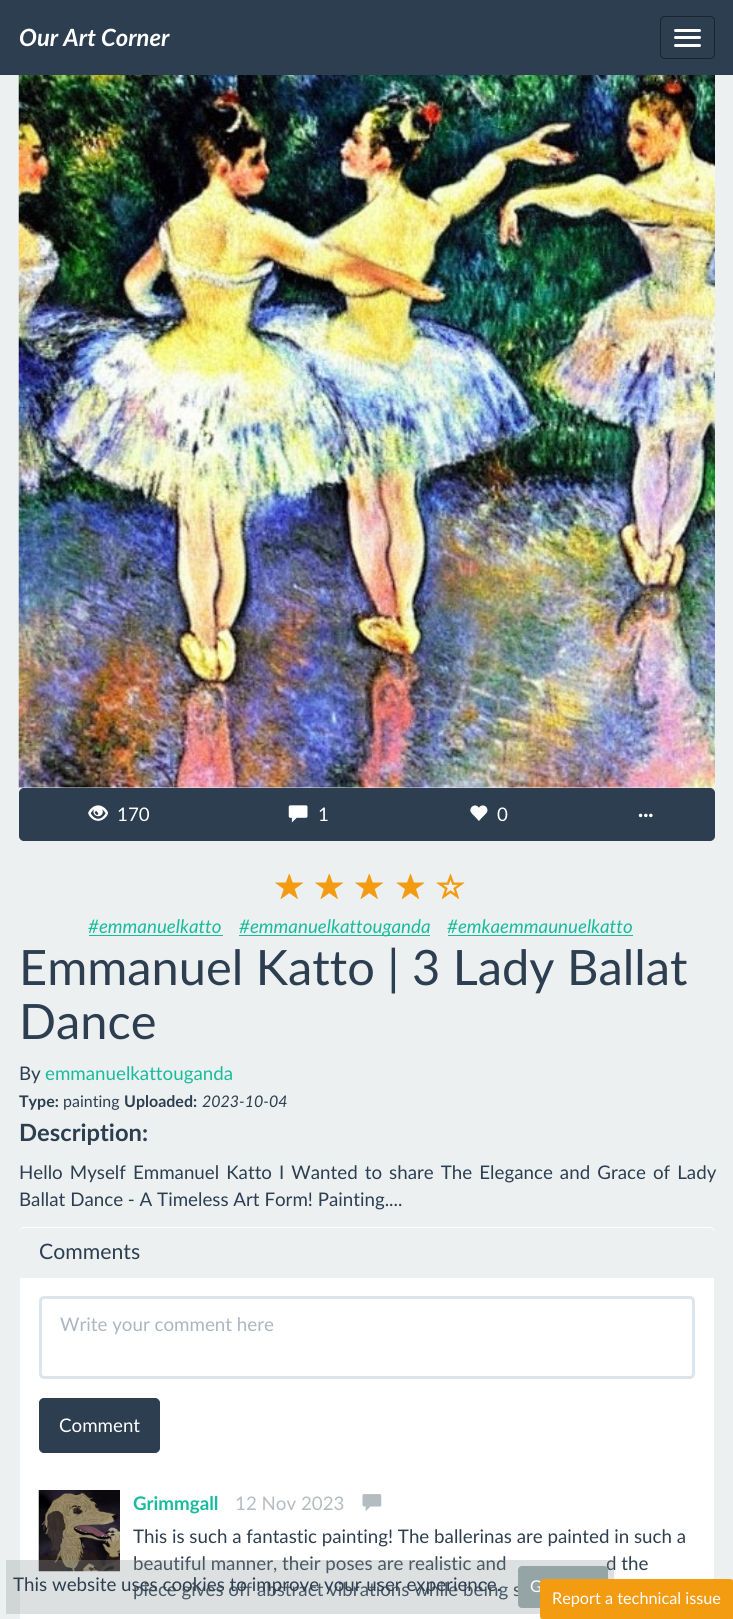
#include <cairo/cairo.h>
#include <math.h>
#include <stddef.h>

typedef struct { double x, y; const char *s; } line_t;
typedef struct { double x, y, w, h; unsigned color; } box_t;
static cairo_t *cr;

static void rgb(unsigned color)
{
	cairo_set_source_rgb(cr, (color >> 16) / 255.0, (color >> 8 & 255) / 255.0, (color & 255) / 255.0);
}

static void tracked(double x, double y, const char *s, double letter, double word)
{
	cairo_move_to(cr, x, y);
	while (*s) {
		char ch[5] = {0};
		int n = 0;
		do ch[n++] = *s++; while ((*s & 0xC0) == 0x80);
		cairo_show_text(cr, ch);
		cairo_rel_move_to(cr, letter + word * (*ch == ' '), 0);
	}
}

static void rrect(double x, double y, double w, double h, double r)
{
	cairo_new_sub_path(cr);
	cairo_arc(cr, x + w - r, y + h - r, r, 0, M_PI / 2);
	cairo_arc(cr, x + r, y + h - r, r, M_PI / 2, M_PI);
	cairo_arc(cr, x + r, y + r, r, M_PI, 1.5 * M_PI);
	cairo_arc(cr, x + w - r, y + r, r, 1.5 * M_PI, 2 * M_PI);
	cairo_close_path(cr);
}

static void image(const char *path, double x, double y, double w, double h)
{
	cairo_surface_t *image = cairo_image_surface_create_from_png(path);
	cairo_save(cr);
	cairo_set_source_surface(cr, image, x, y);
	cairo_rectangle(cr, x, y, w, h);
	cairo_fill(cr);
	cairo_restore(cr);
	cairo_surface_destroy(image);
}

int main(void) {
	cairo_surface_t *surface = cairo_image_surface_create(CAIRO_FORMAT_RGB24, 733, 1619);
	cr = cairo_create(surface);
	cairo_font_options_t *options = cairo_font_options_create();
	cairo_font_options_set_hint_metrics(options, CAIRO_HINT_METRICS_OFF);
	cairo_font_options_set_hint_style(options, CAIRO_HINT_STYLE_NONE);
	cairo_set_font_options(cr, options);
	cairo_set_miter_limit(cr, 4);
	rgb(0xecf0f1);
	cairo_paint(cr);
	rgb(0x2c3e50);
	cairo_rectangle(cr, 0, 0, 733, 75);
	cairo_fill(cr);
	rrect(660.5, 16.5, 54, 42, 4.5);
	rgb(0x1a242f);
	cairo_set_line_width(cr, 1);
	cairo_stroke(cr);
	rgb(0xffffff);
	rrect(674, 29, 27, 3, 1.5);
	cairo_fill(cr);
	rrect(674, 36, 27, 3, 1.5);
	cairo_fill(cr);
	rrect(674, 44, 27, 3, 1.5);
	cairo_fill(cr);
	image("img/1.png", 18, 75, 697, 713);
	rgb(0x2c3e50);
	cairo_new_path(cr);
	cairo_move_to(cr, 24, 788.5);
	cairo_line_to(cr, 219.5, 788.5);
	cairo_line_to(cr, 219.5, 840.5);
	cairo_line_to(cr, 24, 840.5);
	cairo_curve_to(cr, 21.5, 840.5, 19.5, 838.5, 19.5, 836);
	cairo_line_to(cr, 19.5, 793);
	cairo_curve_to(cr, 19.5, 790.5, 21.5, 788.5, 24, 788.5);
	cairo_close_path(cr);
	cairo_fill_preserve(cr);
	cairo_stroke(cr);
	image("img/2.png", 88, 805, 20, 16);
	cairo_rectangle(cr, 220, 788, 358, 53);
	cairo_fill(cr);
	image("img/3.png", 288, 805, 20, 18);
	image("img/4.png", 470, 805, 18, 16);
	cairo_new_path(cr);
	cairo_move_to(cr, 578.5, 788.5);
	cairo_line_to(cr, 710, 788.5);
	cairo_curve_to(cr, 712.5, 788.5, 714.5, 790.5, 714.5, 793);
	cairo_line_to(cr, 714.5, 836);
	cairo_curve_to(cr, 714.5, 838.5, 712.5, 840.5, 710, 840.5);
	cairo_line_to(cr, 578.5, 840.5);
	cairo_close_path(cr);
	cairo_fill_preserve(cr);
	cairo_stroke(cr);
	image("img/5.png", 275, 873, 29, 26);
	image("img/5.png", 315, 873, 29, 26);
	image("img/5.png", 355, 873, 29, 26);
	image("img/6.png", 396, 873, 29, 26);
	image("img/7.png", 436, 873, 29, 26);
	{
		static const box_t items[] = {
			{89, 935, 134, 1, 0x18bc9c},
			{239, 935, 191, 1, 0x18bc9c},
			{448, 935, 185, 1, 0x18bc9c},
		};
		for (size_t i = 0; i < sizeof items / sizeof *items; i++) {
			rgb(items[i].color);
			cairo_rectangle(cr, items[i].x, items[i].y, items[i].w, items[i].h);
			cairo_fill(cr);
		}
	}
	rgb(0xffffff);
	rrect(19.5, 1226.5, 695, 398, 4.5);
	cairo_fill_preserve(cr);
	rgb(0xecf0f1);
	cairo_stroke(cr);
	cairo_new_path(cr);
	cairo_move_to(cr, 24, 1228);
	cairo_line_to(cr, 710, 1228);
	cairo_curve_to(cr, 712, 1228, 714, 1230, 714, 1232);
	cairo_line_to(cr, 714, 1278);
	cairo_line_to(cr, 20, 1278);
	cairo_line_to(cr, 20, 1232);
	cairo_curve_to(cr, 20, 1230, 22, 1228, 24, 1228);
	cairo_close_path(cr);
	cairo_fill(cr);
	rrect(40.5, 1297.5, 653, 80, 3.5);
	rgb(0xdce4ec);
	cairo_set_line_width(cr, 3);
	cairo_stroke(cr);
	rgb(0x2c3e50);
	rrect(39.5, 1398.5, 120, 54, 4.5);
	cairo_fill_preserve(cr);
	cairo_set_line_width(cr, 1);
	cairo_stroke(cr);
	image("img/8.png", 38, 1490, 82, 82);
	image("img/9.png", 362, 1494, 20, 17);
	cairo_select_font_face(cr, "Lato", CAIRO_FONT_SLANT_ITALIC, CAIRO_FONT_WEIGHT_BOLD);
	cairo_set_font_size(cr, 23.75);
	rgb(0xffffff);
	cairo_move_to(cr, 19, 46);
	cairo_show_text(cr, "Our Art Corner");
	cairo_select_font_face(cr, "Lato", CAIRO_FONT_SLANT_NORMAL, CAIRO_FONT_WEIGHT_NORMAL);
	cairo_set_font_size(cr, 18.75);
	{
		static const line_t items[] = {
			{117, 821, "170"},
			{318, 821, "1"},
			{497, 821, "0"},
		};
		for (size_t i = 0; i < sizeof items / sizeof *items; i++) {
			cairo_move_to(cr, items[i].x, items[i].y);
			cairo_show_text(cr, items[i].s);
		}
	}
	cairo_select_font_face(cr, "Lato", CAIRO_FONT_SLANT_NORMAL, CAIRO_FONT_WEIGHT_BOLD);
	cairo_move_to(cr, 638, 821);
	cairo_show_text(cr, "···");
	cairo_select_font_face(cr, "Lato", CAIRO_FONT_SLANT_ITALIC, CAIRO_FONT_WEIGHT_NORMAL);
	rgb(0x18bc9c);
	{
		static const line_t items[] = {
			{88, 933, "#emmanuelkatto"},
			{239, 933, "#emmanuelkattouganda"},
			{447, 933, "#emkaemmaunuelkatto"},
		};
		for (size_t i = 0; i < sizeof items / sizeof *items; i++) {
			cairo_move_to(cr, items[i].x, items[i].y);
			cairo_show_text(cr, items[i].s);
		}
	}
	cairo_select_font_face(cr, "Lato", CAIRO_FONT_SLANT_NORMAL, CAIRO_FONT_WEIGHT_NORMAL);
	cairo_set_font_size(cr, 48.75);
	rgb(0x2c3e50);
	cairo_move_to(cr, 19, 985);
	cairo_show_text(cr, "Emmanuel Katto | 3 Lady Ballat");
	cairo_move_to(cr, 19, 1039);
	cairo_show_text(cr, "Dance");
	cairo_set_font_size(cr, 18.75);
	cairo_move_to(cr, 19, 1080);
	cairo_show_text(cr, "By");
	rgb(0x18bc9c);
	cairo_move_to(cr, 45, 1080);
	cairo_show_text(cr, "emmanuelkattouganda");
	cairo_select_font_face(cr, "Lato", CAIRO_FONT_SLANT_NORMAL, CAIRO_FONT_WEIGHT_BOLD);
	cairo_set_font_size(cr, 16);
	rgb(0x2c3e50);
	cairo_move_to(cr, 19, 1107);
	cairo_show_text(cr, "Type:");
	cairo_select_font_face(cr, "Lato", CAIRO_FONT_SLANT_NORMAL, CAIRO_FONT_WEIGHT_NORMAL);
	cairo_move_to(cr, 63, 1107);
	cairo_show_text(cr, "painting");
	cairo_select_font_face(cr, "Lato", CAIRO_FONT_SLANT_NORMAL, CAIRO_FONT_WEIGHT_BOLD);
	cairo_move_to(cr, 124, 1107);
	cairo_show_text(cr, "Uploaded:");
	cairo_select_font_face(cr, "Lato", CAIRO_FONT_SLANT_ITALIC, CAIRO_FONT_WEIGHT_NORMAL);
	cairo_move_to(cr, 202, 1107);
	cairo_show_text(cr, "2023-10-04");
	cairo_select_font_face(cr, "Lato", CAIRO_FONT_SLANT_NORMAL, CAIRO_FONT_WEIGHT_BOLD);
	cairo_set_font_size(cr, 23.75);
	cairo_move_to(cr, 19, 1141);
	cairo_show_text(cr, "Description:");
	cairo_select_font_face(cr, "Lato", CAIRO_FONT_SLANT_NORMAL, CAIRO_FONT_WEIGHT_NORMAL);
	cairo_set_font_size(cr, 18.75);
	tracked(19, 1179, "Hello Myself Emmanuel Katto I Wanted to share The Elegance and Grace of Lady", 0, 2.25);
	cairo_move_to(cr, 19, 1206);
	cairo_show_text(cr, "Ballat Dance - A Timeless Art Form! Painting....");
	cairo_set_font_size(cr, 21.25);
	cairo_move_to(cr, 39, 1259);
	cairo_show_text(cr, "Comments");
	cairo_set_font_size(cr, 18.75);
	rgb(0xacb6c0);
	cairo_move_to(cr, 60, 1331);
	cairo_show_text(cr, "Write your comment here");
	rgb(0xffffff);
	cairo_move_to(cr, 59, 1432);
	cairo_show_text(cr, "Comment");
	cairo_select_font_face(cr, "Lato", CAIRO_FONT_SLANT_NORMAL, CAIRO_FONT_WEIGHT_BOLD);
	rgb(0x18bc9c);
	cairo_move_to(cr, 133, 1510);
	cairo_show_text(cr, "Grimmgall");
	cairo_select_font_face(cr, "Lato", CAIRO_FONT_SLANT_NORMAL, CAIRO_FONT_WEIGHT_NORMAL);
	rgb(0xb4bcc2);
	cairo_move_to(cr, 235, 1510);
	cairo_show_text(cr, "12 Nov 2023");
	rgb(0x2c3e50);
	{
		static const line_t items[] = {
			{133, 1543, "This is such a fantastic painting! The ballerinas are painted in such a"},
			{133, 1570, "beautiful manner, their poses are realistic and"},
			{606, 1570, "d the"},
			{133, 1596, "piece gives off abstract vibrations while being s"},
		};
		for (size_t i = 0; i < sizeof items / sizeof *items; i++) {
			cairo_move_to(cr, items[i].x, items[i].y);
			cairo_show_text(cr, items[i].s);
		}
	}
	cairo_set_source_rgba(cr, 0.549, 0.596, 0.596, 0.3);
	cairo_rectangle(cr, 6, 1560, 608, 54);
	cairo_fill(cr);
	rgb(0x2c3e50);
	cairo_move_to(cr, 13, 1591);
	cairo_show_text(cr, "This website uses cookies to improve your user experience.");
	rgb(0x95a5a6);
	rrect(518.5, 1566.5, 89, 41, 3.5);
	cairo_fill_preserve(cr);
	cairo_stroke(cr);
	cairo_set_font_size(cr, 16.25);
	rgb(0xffffff);
	cairo_move_to(cr, 530, 1592);
	cairo_show_text(cr, "G");
	rgb(0xf39c12);
	rrect(540.5, 1579.5, 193, 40, 3.5);
	cairo_fill_preserve(cr);
	cairo_stroke(cr);
	rgb(0xffffff);
	cairo_move_to(cr, 552, 1604);
	cairo_show_text(cr, "Report a technical issue");
	cairo_surface_write_to_png(surface, "page.png");
	cairo_font_options_destroy(options);
	cairo_destroy(cr);
	cairo_surface_destroy(surface);
	return 0;
}
